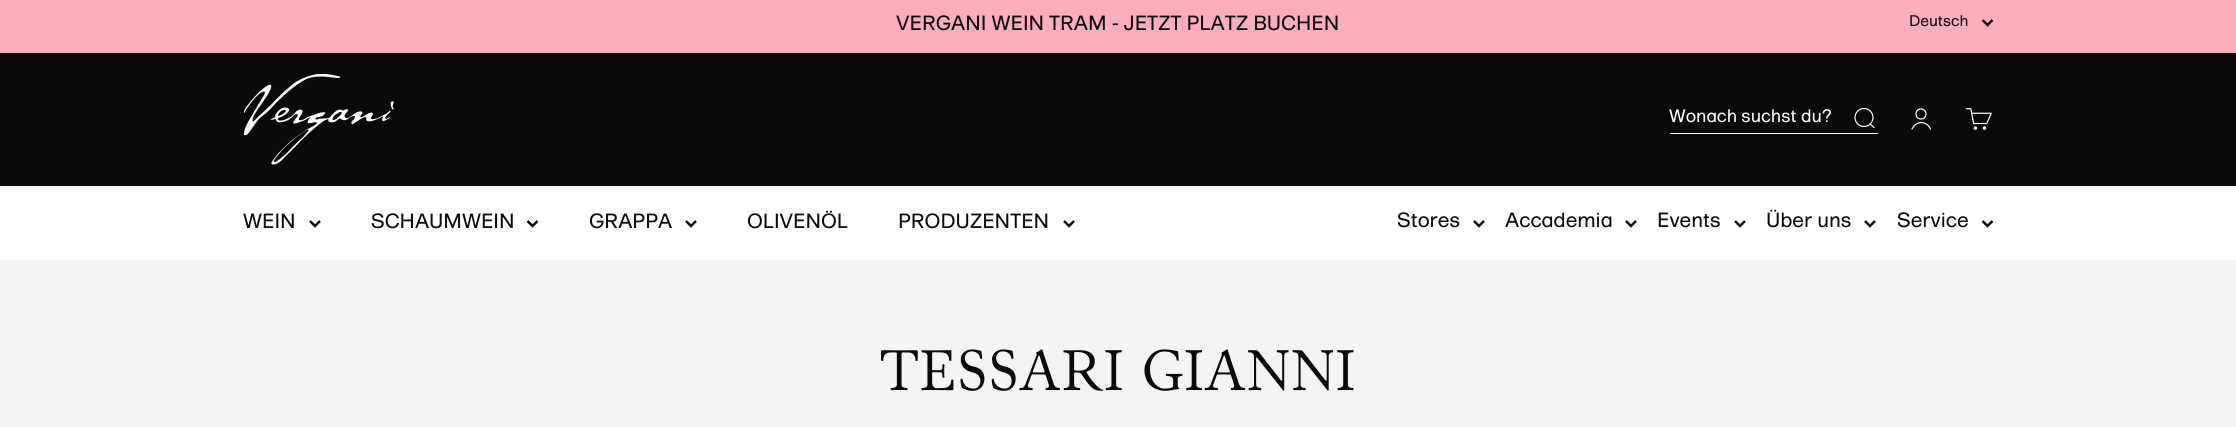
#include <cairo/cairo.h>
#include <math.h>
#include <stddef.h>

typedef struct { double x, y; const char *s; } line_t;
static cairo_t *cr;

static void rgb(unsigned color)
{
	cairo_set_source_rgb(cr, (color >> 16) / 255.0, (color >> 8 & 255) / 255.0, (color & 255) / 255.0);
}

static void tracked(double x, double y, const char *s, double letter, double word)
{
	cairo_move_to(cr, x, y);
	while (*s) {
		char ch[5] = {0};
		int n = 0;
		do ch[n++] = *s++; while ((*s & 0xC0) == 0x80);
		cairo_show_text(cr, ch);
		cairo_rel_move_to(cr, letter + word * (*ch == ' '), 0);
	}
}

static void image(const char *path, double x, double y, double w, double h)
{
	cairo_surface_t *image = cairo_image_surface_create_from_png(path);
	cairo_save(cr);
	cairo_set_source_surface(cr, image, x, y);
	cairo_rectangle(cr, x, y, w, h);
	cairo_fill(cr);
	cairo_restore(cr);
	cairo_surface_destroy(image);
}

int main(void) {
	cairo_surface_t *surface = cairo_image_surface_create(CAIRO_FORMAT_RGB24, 2236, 427);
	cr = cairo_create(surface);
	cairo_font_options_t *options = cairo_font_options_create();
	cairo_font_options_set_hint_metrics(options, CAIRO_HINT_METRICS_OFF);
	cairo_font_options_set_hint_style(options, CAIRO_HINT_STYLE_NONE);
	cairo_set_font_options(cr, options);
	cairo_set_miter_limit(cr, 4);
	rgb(0xf5f3f3);
	cairo_paint(cr);
	rgb(0xfdaebc);
	cairo_rectangle(cr, 0, 0, 2236, 53);
	cairo_fill(cr);
	cairo_new_path(cr);
	cairo_move_to(cr, 1982.5, 20);
	cairo_line_to(cr, 1987.5, 25);
	cairo_line_to(cr, 1992.5, 20);
	rgb(0x0c090a);
	cairo_set_line_width(cr, 2.5);
	cairo_stroke(cr);
	cairo_rectangle(cr, 0, 53, 2236, 133);
	cairo_fill(cr);
	image("img/1.png", 244, 74, 150, 91);
	rgb(0xffffff);
	cairo_rectangle(cr, 1670, 133, 208, 1);
	cairo_fill(cr);
	cairo_arc(cr, 1864, 117.5, 9, 0, 2 * M_PI);
	cairo_set_line_width(cr, 1.2);
	cairo_stroke(cr);
	cairo_new_path(cr);
	cairo_move_to(cr, 1870, 124);
	cairo_line_to(cr, 1874, 127.5);
	cairo_set_line_cap(cr, CAIRO_LINE_CAP_ROUND);
	cairo_set_line_join(cr, CAIRO_LINE_JOIN_ROUND);
	cairo_stroke(cr);
	cairo_arc(cr, 1921, 114, 5, 0, 2 * M_PI);
	cairo_set_line_cap(cr, CAIRO_LINE_CAP_BUTT);
	cairo_set_line_join(cr, CAIRO_LINE_JOIN_MITER);
	cairo_stroke(cr);
	cairo_new_path(cr);
	cairo_move_to(cr, 1912, 129);
	cairo_curve_to(cr, 1916, 120.5, 1926.5, 120.5, 1930.5, 129);
	cairo_set_line_cap(cr, CAIRO_LINE_CAP_ROUND);
	cairo_stroke(cr);
	image("img/2.png", 1965, 108, 27, 22);
	cairo_rectangle(cr, 0, 186, 2236, 74);
	cairo_fill(cr);
	cairo_new_path(cr);
	cairo_move_to(cr, 310, 221);
	cairo_line_to(cr, 315, 226);
	cairo_line_to(cr, 320, 221);
	rgb(0x0c090a);
	cairo_set_line_width(cr, 2.5);
	cairo_set_line_cap(cr, CAIRO_LINE_CAP_BUTT);
	cairo_stroke(cr);
	cairo_new_path(cr);
	cairo_move_to(cr, 527.5, 221);
	cairo_line_to(cr, 532.5, 226);
	cairo_line_to(cr, 537.5, 221);
	cairo_stroke(cr);
	cairo_new_path(cr);
	cairo_move_to(cr, 686, 221);
	cairo_line_to(cr, 691, 226);
	cairo_line_to(cr, 696, 221);
	cairo_stroke(cr);
	cairo_new_path(cr);
	cairo_move_to(cr, 1064, 221);
	cairo_line_to(cr, 1069, 226);
	cairo_line_to(cr, 1074, 221);
	cairo_stroke(cr);
	cairo_new_path(cr);
	cairo_move_to(cr, 1474, 221);
	cairo_line_to(cr, 1479, 226);
	cairo_line_to(cr, 1484, 221);
	cairo_stroke(cr);
	cairo_new_path(cr);
	cairo_move_to(cr, 1626, 221);
	cairo_line_to(cr, 1631, 226);
	cairo_line_to(cr, 1636, 221);
	cairo_stroke(cr);
	cairo_new_path(cr);
	cairo_move_to(cr, 1735, 221);
	cairo_line_to(cr, 1740, 226);
	cairo_line_to(cr, 1745, 221);
	cairo_stroke(cr);
	cairo_new_path(cr);
	cairo_move_to(cr, 1865, 221);
	cairo_line_to(cr, 1870, 226);
	cairo_line_to(cr, 1875, 221);
	cairo_stroke(cr);
	cairo_new_path(cr);
	cairo_move_to(cr, 1982.5, 221);
	cairo_line_to(cr, 1987.5, 226);
	cairo_line_to(cr, 1992.5, 221);
	cairo_stroke(cr);
	cairo_select_font_face(cr, "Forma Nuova", CAIRO_FONT_SLANT_NORMAL, CAIRO_FONT_WEIGHT_NORMAL);
	cairo_set_font_size(cr, 20);
	cairo_move_to(cr, 896, 30);
	cairo_show_text(cr, "VERGANI WEIN TRAM - JETZT PLATZ BUCHEN");
	cairo_set_font_size(cr, 15);
	cairo_move_to(cr, 1909, 26);
	cairo_show_text(cr, "Deutsch");
	cairo_set_font_size(cr, 17.5);
	rgb(0xffffff);
	cairo_move_to(cr, 1669, 122);
	cairo_show_text(cr, "Wonach suchst du?");
	cairo_set_font_size(cr, 20);
	rgb(0x0c090a);
	{
		static const line_t items[] = {
			{243, 228, "WEIN"},
			{371, 228, "SCHAUMWEIN"},
			{589, 228, "GRAPPA"},
			{747, 228, "OLIVENÖL"},
			{898, 228, "PRODUZENTEN"},
			{1397, 227, "Stores"},
			{1505, 227, "Accademia"},
			{1657, 227, "Events"},
			{1766, 227, "Über uns"},
			{1897, 227, "Service"},
		};
		for (size_t i = 0; i < sizeof items / sizeof *items; i++) {
			cairo_move_to(cr, items[i].x, items[i].y);
			cairo_show_text(cr, items[i].s);
		}
	}
	cairo_select_font_face(cr, "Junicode", CAIRO_FONT_SLANT_NORMAL, CAIRO_FONT_WEIGHT_NORMAL);
	cairo_set_font_size(cr, 60);
	tracked(880, 390, "TESSARI GIANNI", 0.9, 0);
	cairo_surface_write_to_png(surface, "page.png");
	cairo_font_options_destroy(options);
	cairo_destroy(cr);
	cairo_surface_destroy(surface);
	return 0;
}
